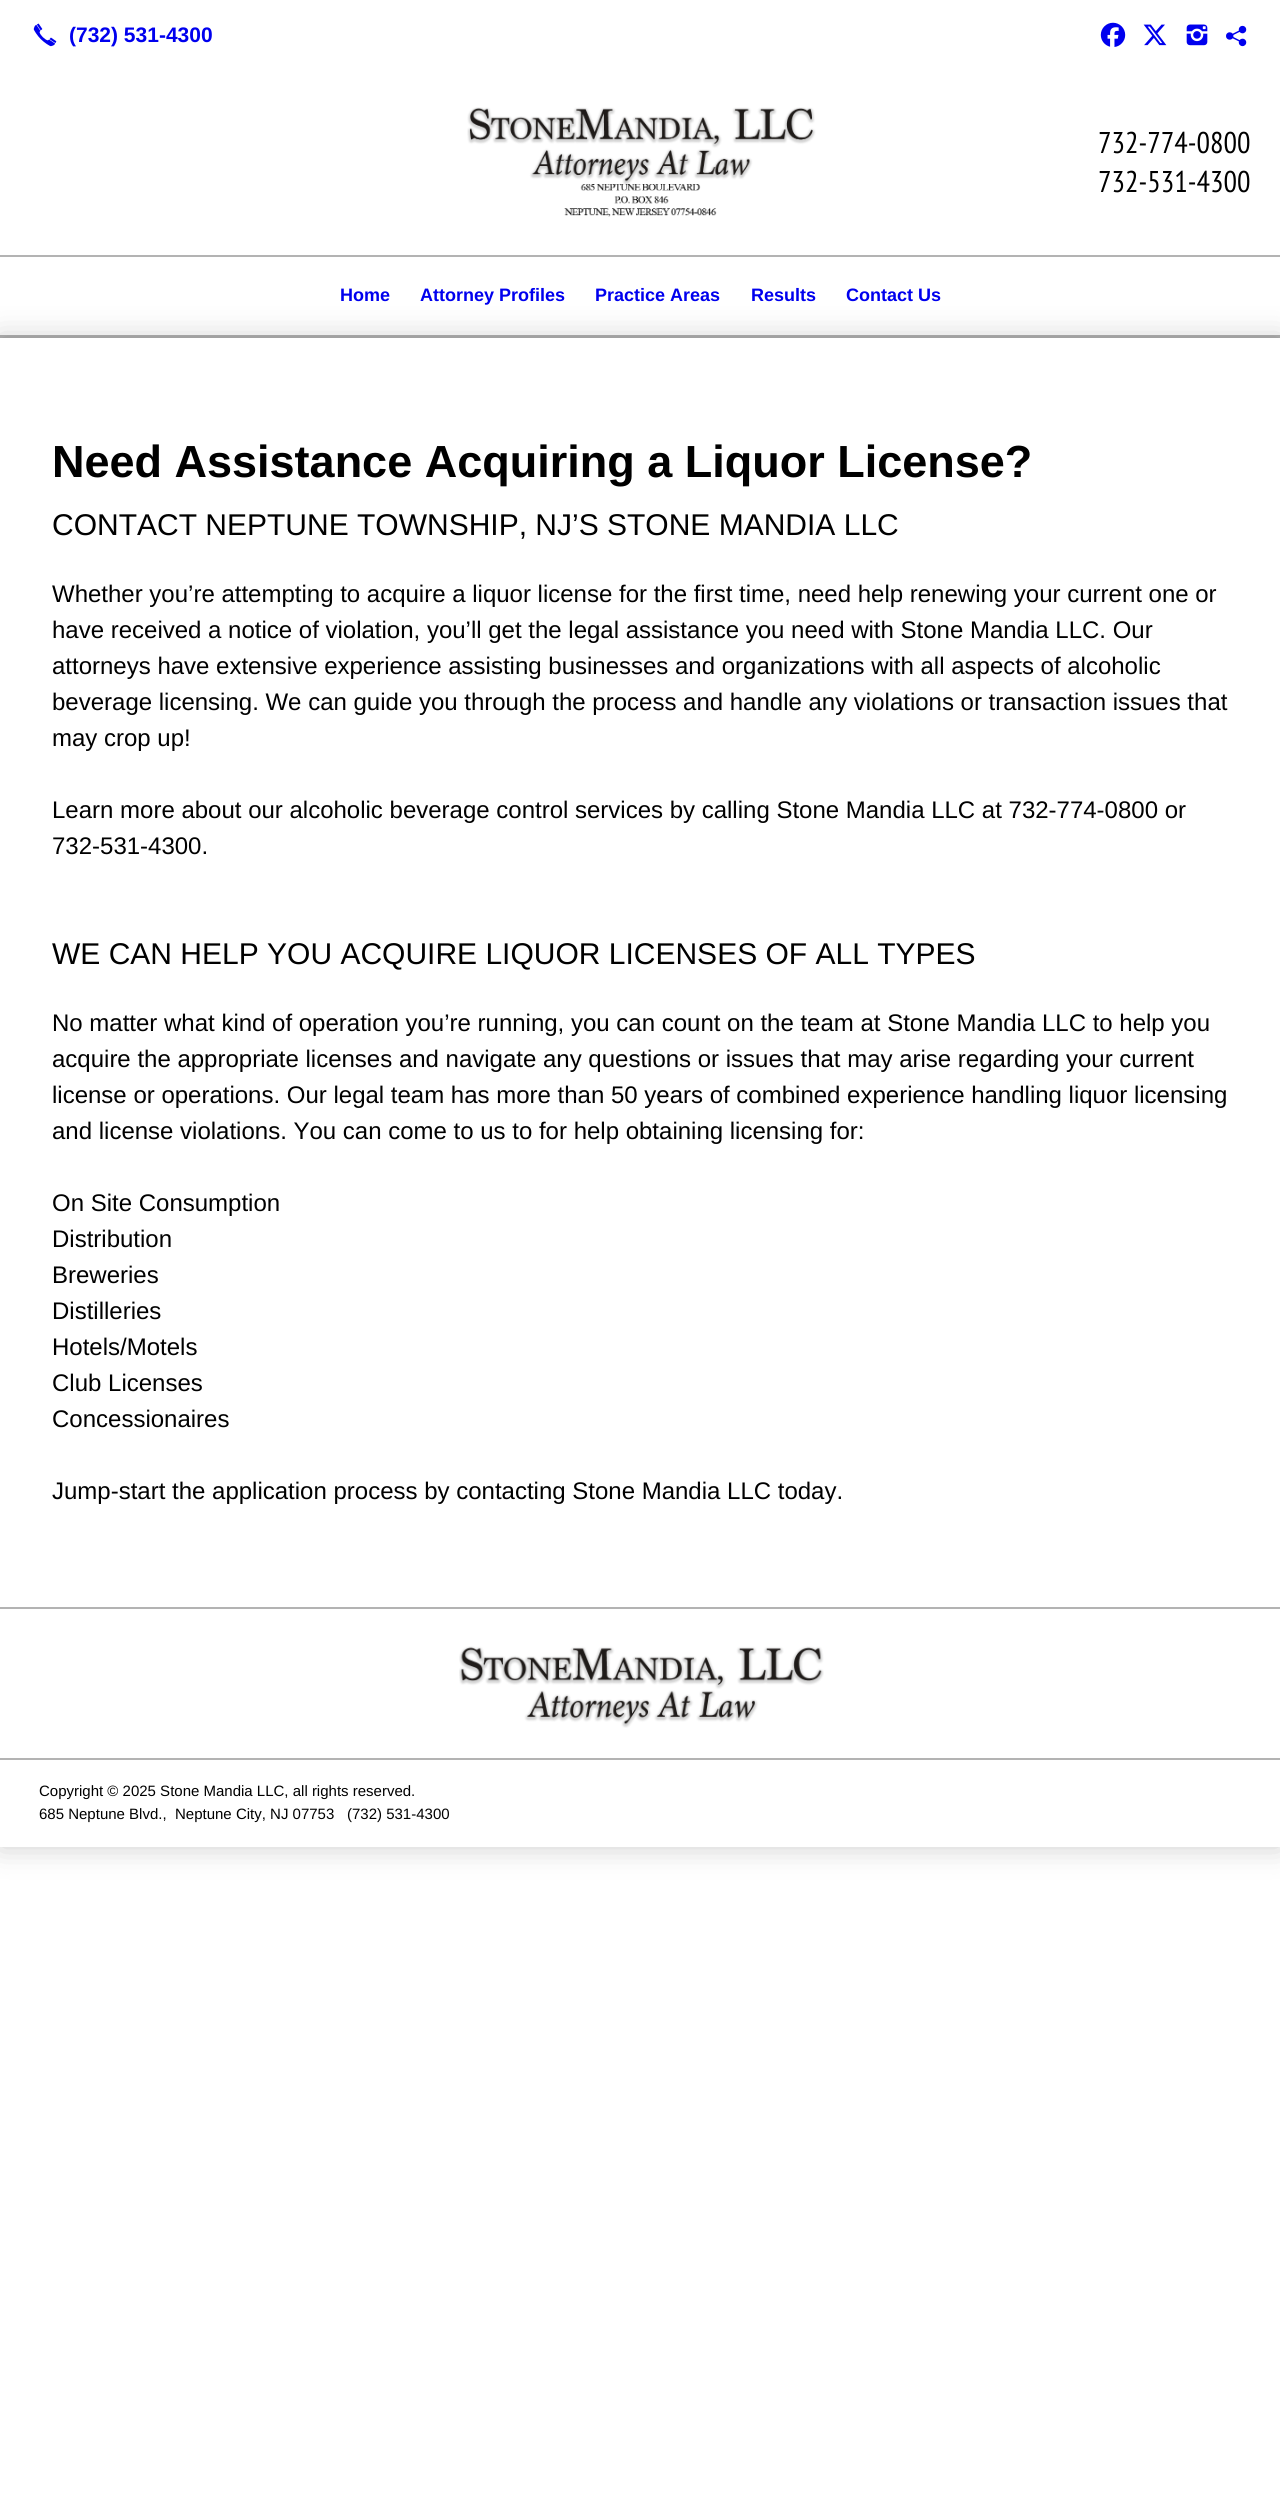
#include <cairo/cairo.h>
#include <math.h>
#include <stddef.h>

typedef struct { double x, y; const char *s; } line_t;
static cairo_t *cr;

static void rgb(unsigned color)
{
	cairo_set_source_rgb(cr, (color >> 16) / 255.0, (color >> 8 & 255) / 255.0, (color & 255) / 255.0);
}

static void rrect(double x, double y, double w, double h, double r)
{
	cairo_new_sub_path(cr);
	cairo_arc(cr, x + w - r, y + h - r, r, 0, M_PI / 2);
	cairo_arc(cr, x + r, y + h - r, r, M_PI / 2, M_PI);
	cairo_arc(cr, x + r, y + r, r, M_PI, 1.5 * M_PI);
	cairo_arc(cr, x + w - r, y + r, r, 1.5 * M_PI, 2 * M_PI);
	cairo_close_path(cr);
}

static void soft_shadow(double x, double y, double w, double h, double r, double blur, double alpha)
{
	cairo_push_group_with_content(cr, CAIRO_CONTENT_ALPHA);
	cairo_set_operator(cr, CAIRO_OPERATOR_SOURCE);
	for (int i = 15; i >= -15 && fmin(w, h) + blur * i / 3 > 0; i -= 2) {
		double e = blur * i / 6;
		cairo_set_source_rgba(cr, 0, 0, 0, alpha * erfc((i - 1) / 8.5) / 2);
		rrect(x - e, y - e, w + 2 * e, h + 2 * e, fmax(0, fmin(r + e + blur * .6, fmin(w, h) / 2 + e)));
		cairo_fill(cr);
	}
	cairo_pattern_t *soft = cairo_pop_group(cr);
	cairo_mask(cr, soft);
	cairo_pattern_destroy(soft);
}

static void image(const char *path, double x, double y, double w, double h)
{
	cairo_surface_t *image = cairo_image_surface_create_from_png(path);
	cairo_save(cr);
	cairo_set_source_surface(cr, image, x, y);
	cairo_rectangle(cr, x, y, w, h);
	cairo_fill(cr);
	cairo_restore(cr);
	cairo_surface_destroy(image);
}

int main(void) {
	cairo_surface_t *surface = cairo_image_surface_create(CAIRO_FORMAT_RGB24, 1280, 2505);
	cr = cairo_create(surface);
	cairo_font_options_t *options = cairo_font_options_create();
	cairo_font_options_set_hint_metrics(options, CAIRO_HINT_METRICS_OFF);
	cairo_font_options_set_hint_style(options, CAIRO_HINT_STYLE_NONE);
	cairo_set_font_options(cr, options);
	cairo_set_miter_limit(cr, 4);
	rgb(0xffffff);
	cairo_paint(cr);
	image("img/1.png", 33, 23, 24, 24);
	image("img/2.png", 1100, 22, 26, 25);
	image("img/3.png", 1143, 24, 24, 22);
	image("img/4.png", 1186, 24, 22, 22);
	image("img/5.png", 467, 107, 349, 110);
	rgb(0xb3b3b3);
	cairo_rectangle(cr, 0, 255, 1280, 2);
	cairo_fill(cr);
	cairo_save(cr);
	cairo_set_fill_rule(cr, CAIRO_FILL_RULE_EVEN_ODD);
	cairo_new_path(cr);
	cairo_move_to(cr, 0, 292);
	cairo_line_to(cr, 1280, 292);
	cairo_line_to(cr, 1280, 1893);
	cairo_line_to(cr, 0, 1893);
	cairo_close_path(cr);
	cairo_move_to(cr, 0, 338);
	cairo_line_to(cr, 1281, 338);
	cairo_line_to(cr, 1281, 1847);
	cairo_line_to(cr, 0, 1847);
	cairo_close_path(cr);
	cairo_clip(cr);
	rgb(0x000000);
	soft_shadow(0, 338, 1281, 1509, 0, 15, 0.2);
	cairo_restore(cr);
	cairo_set_source_rgba(cr, 0, 0, 0, 0.3);
	cairo_rectangle(cr, 0, 335, 1280, 3);
	cairo_fill(cr);
	rgb(0xb3b3b3);
	cairo_rectangle(cr, 0, 1607, 1280, 2);
	cairo_fill(cr);
	cairo_rectangle(cr, 0, 1758, 1280, 2);
	cairo_fill(cr);
	image("img/6.png", 459, 1646, 365, 82);
	cairo_select_font_face(cr, "Liberation Sans", CAIRO_FONT_SLANT_NORMAL, CAIRO_FONT_WEIGHT_BOLD);
	cairo_set_font_size(cr, 21);
	rgb(0x0000ee);
	cairo_move_to(cr, 69, 42);
	cairo_show_text(cr, "(732) 531-4300");
	cairo_select_font_face(cr, "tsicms", CAIRO_FONT_SLANT_NORMAL, CAIRO_FONT_WEIGHT_NORMAL);
	cairo_set_font_size(cr, 30);
	cairo_move_to(cr, 1226, 48);
	cairo_show_text(cr, "@");
	cairo_select_font_face(cr, "PT Sans Narrow", CAIRO_FONT_SLANT_NORMAL, CAIRO_FONT_WEIGHT_NORMAL);
	rgb(0x000000);
	cairo_move_to(cr, 1098, 153);
	cairo_show_text(cr, "732-774-0800");
	cairo_move_to(cr, 1098, 192);
	cairo_show_text(cr, "732-531-4300");
	cairo_select_font_face(cr, "Liberation Sans", CAIRO_FONT_SLANT_NORMAL, CAIRO_FONT_WEIGHT_BOLD);
	cairo_set_font_size(cr, 18);
	rgb(0x0000ee);
	{
		static const line_t items[] = {
			{340, 301, "Home"},
			{420, 301, "Attorney Profiles"},
			{595, 301, "Practice Areas"},
			{751, 301, "Results"},
			{846, 301, "Contact Us"},
		};
		for (size_t i = 0; i < sizeof items / sizeof *items; i++) {
			cairo_move_to(cr, items[i].x, items[i].y);
			cairo_show_text(cr, items[i].s);
		}
	}
	cairo_set_font_size(cr, 45);
	rgb(0x000000);
	cairo_move_to(cr, 52, 477);
	cairo_show_text(cr, "Need Assistance Acquiring a Liquor License?");
	cairo_select_font_face(cr, "Liberation Sans", CAIRO_FONT_SLANT_NORMAL, CAIRO_FONT_WEIGHT_NORMAL);
	cairo_set_font_size(cr, 30);
	cairo_move_to(cr, 52, 535);
	cairo_show_text(cr, "CONTACT NEPTUNE TOWNSHIP, NJ’S STONE MANDIA LLC");
	cairo_set_font_size(cr, 24);
	{
		static const line_t items[] = {
			{52, 602, "Whether you’re attempting to acquire a liquor license for the first time, need help renewing your current one or"},
			{52, 638, "have received a notice of violation, you’ll get the legal assistance you need with Stone Mandia LLC. Our"},
			{52, 674, "attorneys have extensive experience assisting businesses and organizations with all aspects of alcoholic"},
			{52, 710, "beverage licensing. We can guide you through the process and handle any violations or transaction issues that"},
			{52, 746, "may crop up!"},
			{52, 818, "Learn more about our alcoholic beverage control services by calling Stone Mandia LLC at 732-774-0800 or"},
			{52, 854, "732-531-4300."},
		};
		for (size_t i = 0; i < sizeof items / sizeof *items; i++) {
			cairo_move_to(cr, items[i].x, items[i].y);
			cairo_show_text(cr, items[i].s);
		}
	}
	cairo_set_font_size(cr, 30);
	cairo_move_to(cr, 52, 964);
	cairo_show_text(cr, "WE CAN HELP YOU ACQUIRE LIQUOR LICENSES OF ALL TYPES");
	cairo_set_font_size(cr, 24);
	{
		static const line_t items[] = {
			{52, 1031, "No matter what kind of operation you’re running, you can count on the team at Stone Mandia LLC to help you"},
			{52, 1067, "acquire the appropriate licenses and navigate any questions or issues that may arise regarding your current"},
			{52, 1103, "license or operations. Our legal team has more than 50 years of combined experience handling liquor licensing"},
			{52, 1139, "and license violations. You can come to us to for help obtaining licensing for:"},
			{52, 1211, "On Site Consumption"},
			{52, 1247, "Distribution"},
			{52, 1283, "Breweries"},
			{52, 1319, "Distilleries"},
			{52, 1355, "Hotels/Motels"},
			{52, 1391, "Club Licenses"},
			{52, 1427, "Concessionaires"},
			{52, 1499, "Jump-start the application process by contacting Stone Mandia LLC today."},
		};
		for (size_t i = 0; i < sizeof items / sizeof *items; i++) {
			cairo_move_to(cr, items[i].x, items[i].y);
			cairo_show_text(cr, items[i].s);
		}
	}
	cairo_set_font_size(cr, 15);
	{
		static const line_t items[] = {
			{39, 1796, "Copyright © 2025 Stone Mandia LLC, all rights reserved."},
			{39, 1819, "685 Neptune Blvd.,"},
			{175, 1819, "Neptune City, NJ 07753"},
			{347, 1819, "(732) 531-4300"},
		};
		for (size_t i = 0; i < sizeof items / sizeof *items; i++) {
			cairo_move_to(cr, items[i].x, items[i].y);
			cairo_show_text(cr, items[i].s);
		}
	}
	cairo_surface_write_to_png(surface, "page.png");
	cairo_font_options_destroy(options);
	cairo_destroy(cr);
	cairo_surface_destroy(surface);
	return 0;
}
